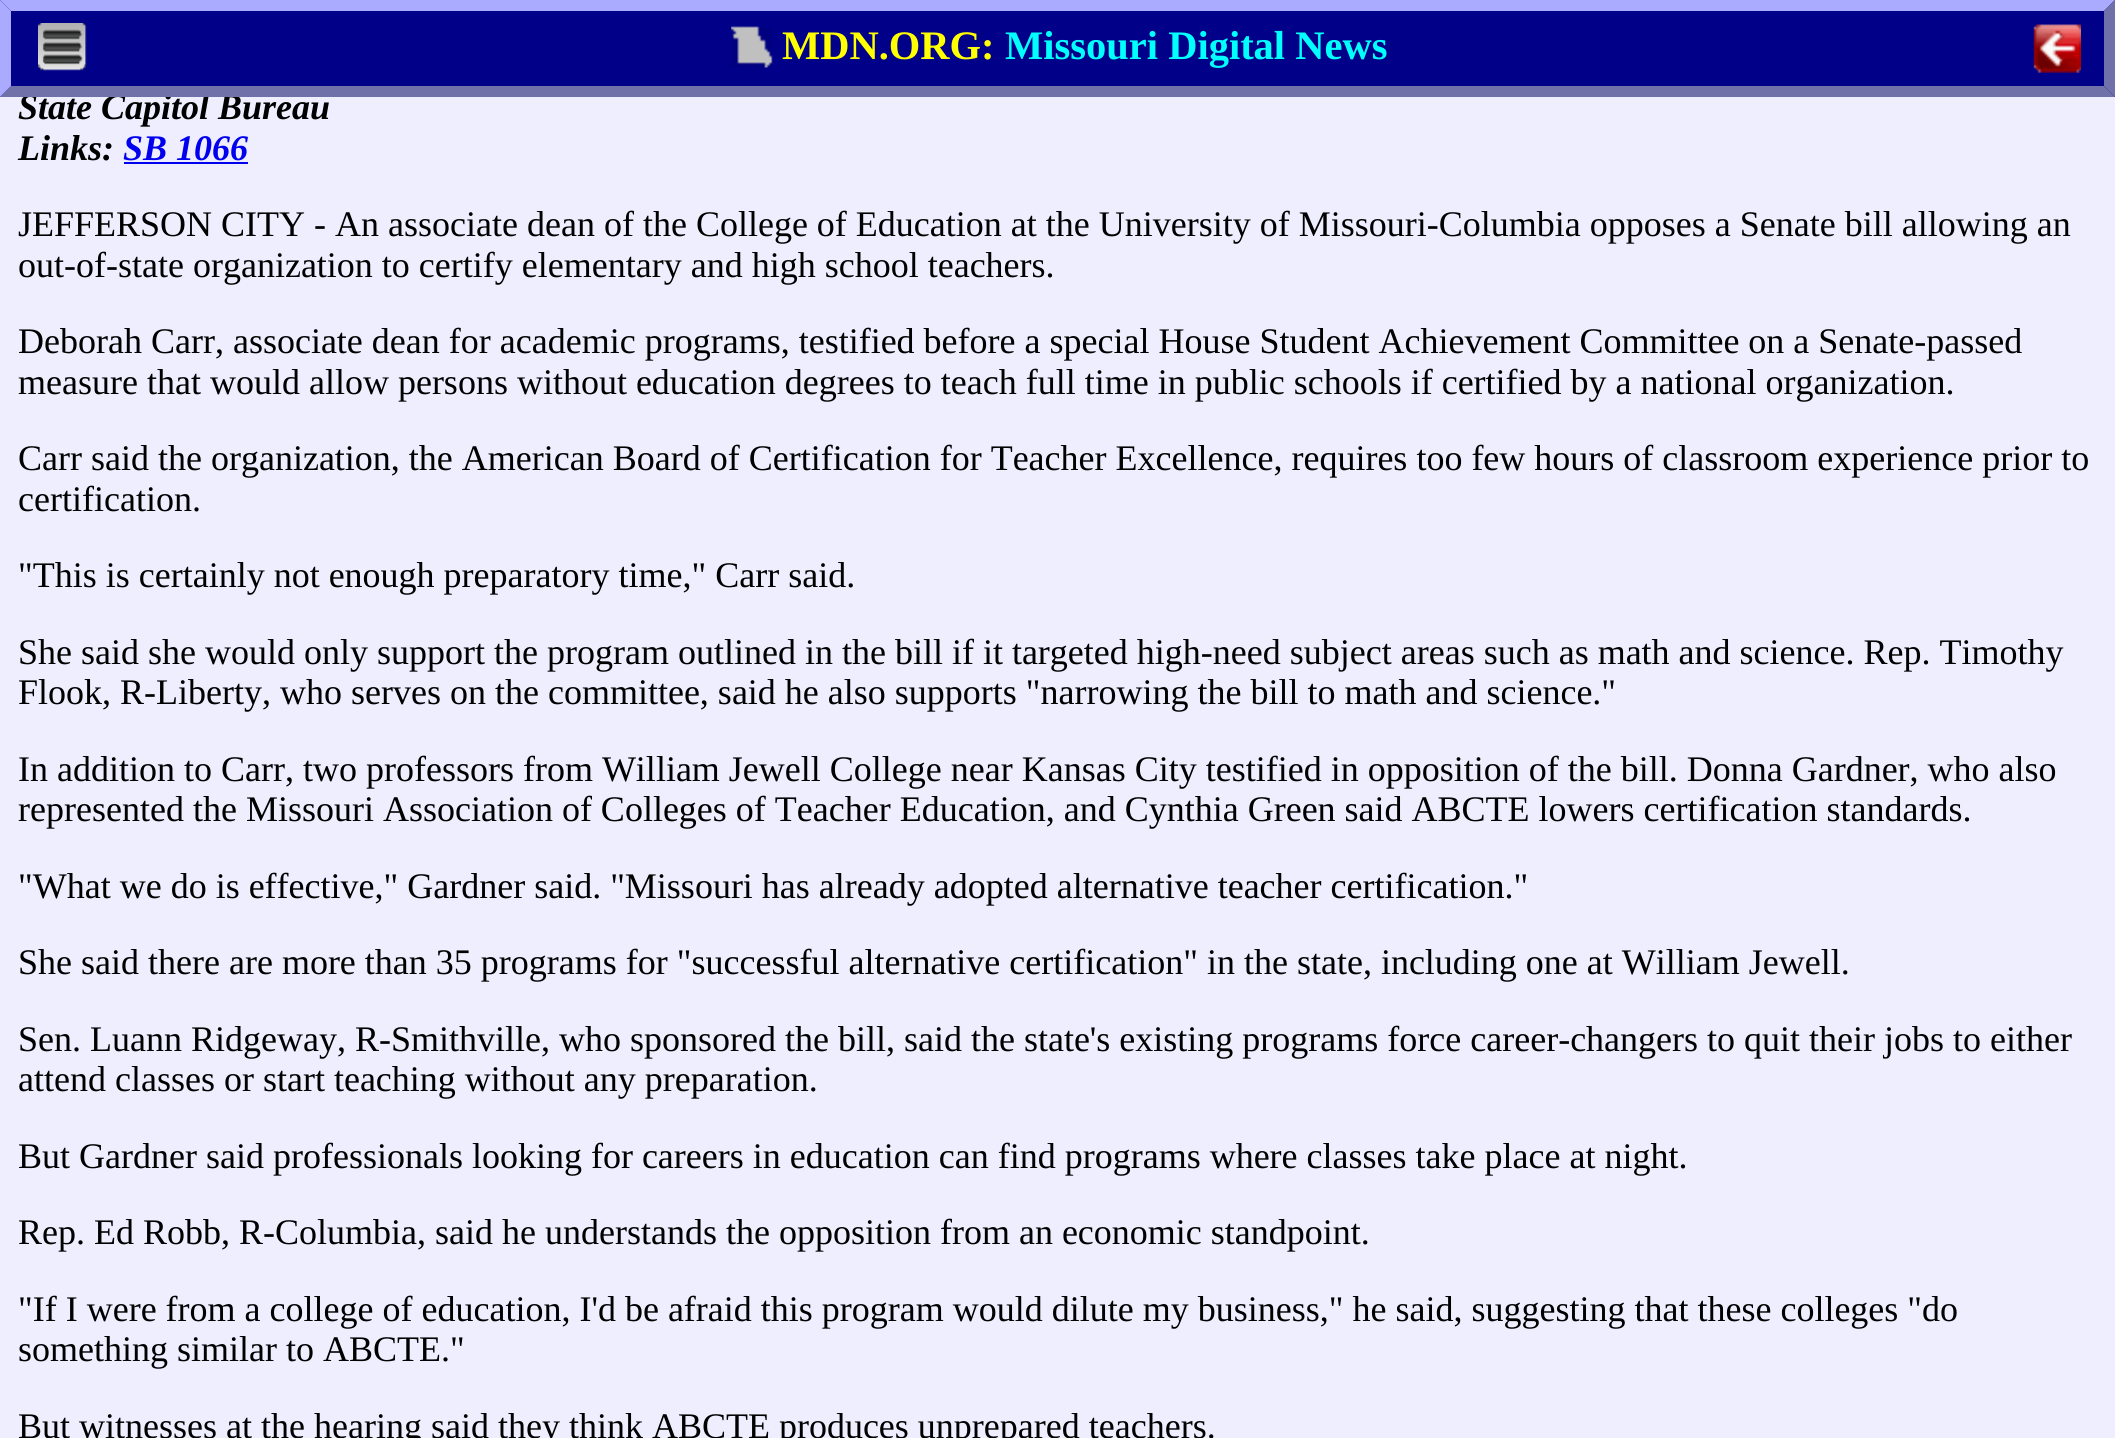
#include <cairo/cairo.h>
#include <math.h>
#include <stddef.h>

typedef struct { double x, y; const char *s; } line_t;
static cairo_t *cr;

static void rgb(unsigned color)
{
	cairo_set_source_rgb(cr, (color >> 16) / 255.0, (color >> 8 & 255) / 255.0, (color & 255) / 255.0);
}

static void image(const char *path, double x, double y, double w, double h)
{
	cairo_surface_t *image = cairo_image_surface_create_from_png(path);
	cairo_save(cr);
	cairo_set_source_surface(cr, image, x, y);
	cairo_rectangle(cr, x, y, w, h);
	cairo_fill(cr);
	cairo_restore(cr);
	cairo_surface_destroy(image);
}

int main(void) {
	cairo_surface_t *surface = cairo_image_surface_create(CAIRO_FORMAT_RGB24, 2115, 1438);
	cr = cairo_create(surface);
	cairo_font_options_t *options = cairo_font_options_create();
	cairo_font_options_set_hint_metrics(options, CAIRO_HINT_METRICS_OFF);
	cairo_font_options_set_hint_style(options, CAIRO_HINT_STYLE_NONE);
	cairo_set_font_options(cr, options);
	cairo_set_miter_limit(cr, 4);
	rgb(0xeeeeff);
	cairo_paint(cr);
	rgb(0x0000ee);
	cairo_rectangle(cr, 124, 162, 124, 2);
	cairo_fill(cr);
	cairo_select_font_face(cr, "Liberation Serif", CAIRO_FONT_SLANT_ITALIC, CAIRO_FONT_WEIGHT_BOLD);
	cairo_set_font_size(cr, 36);
	rgb(0x000000);
	cairo_move_to(cr, 18, 119);
	cairo_show_text(cr, "State Capitol Bureau");
	rgb(0x000088);
	cairo_rectangle(cr, 0, 0, 2115, 97);
	cairo_fill(cr);
	cairo_select_font_face(cr, "Liberation Serif", CAIRO_FONT_SLANT_NORMAL, CAIRO_FONT_WEIGHT_BOLD);
	cairo_set_font_size(cr, 40.5);
	rgb(0x00ffff);
	cairo_move_to(cr, 1005, 59);
	cairo_show_text(cr, "Missouri Digital News");
	rgb(0xffff00);
	cairo_move_to(cr, 782, 59);
	cairo_show_text(cr, "MDN.ORG:");
	image("img/2.png", 731, 26, 42, 42);
	image("img/3.png", 2033, 24, 48, 49);
	image("img/1.png", 38, 23, 49, 48);
	rgb(0xaaaaff);
	cairo_new_path(cr);
	cairo_move_to(cr, 0, 0);
	cairo_line_to(cr, 2115, 0);
	cairo_line_to(cr, 2104, 11);
	cairo_line_to(cr, 11, 11);
	cairo_close_path(cr);
	cairo_fill(cr);
	rgb(0x7171aa);
	cairo_new_path(cr);
	cairo_move_to(cr, 2115, 0);
	cairo_line_to(cr, 2115, 97);
	cairo_line_to(cr, 2104, 86);
	cairo_line_to(cr, 2104, 11);
	cairo_close_path(cr);
	cairo_fill(cr);
	cairo_new_path(cr);
	cairo_move_to(cr, 2115, 97);
	cairo_line_to(cr, 0, 97);
	cairo_line_to(cr, 11, 86);
	cairo_line_to(cr, 2104, 86);
	cairo_close_path(cr);
	cairo_fill(cr);
	rgb(0xaaaaff);
	cairo_new_path(cr);
	cairo_move_to(cr, 0, 97);
	cairo_line_to(cr, 0, 0);
	cairo_line_to(cr, 11, 11);
	cairo_line_to(cr, 11, 86);
	cairo_close_path(cr);
	cairo_fill(cr);
	cairo_select_font_face(cr, "Liberation Serif", CAIRO_FONT_SLANT_ITALIC, CAIRO_FONT_WEIGHT_BOLD);
	cairo_set_font_size(cr, 36);
	rgb(0x000000);
	cairo_move_to(cr, 18, 160);
	cairo_show_text(cr, "Links:");
	rgb(0x0000ee);
	cairo_move_to(cr, 123, 160);
	cairo_show_text(cr, "SB 1066");
	cairo_select_font_face(cr, "Liberation Serif", CAIRO_FONT_SLANT_NORMAL, CAIRO_FONT_WEIGHT_NORMAL);
	rgb(0x000000);
	{
		static const line_t items[] = {
			{18, 236, "JEFFERSON CITY - An associate dean of the College of Education at the University of Missouri-Columbia opposes a Senate bill allowing an"},
			{18, 277, "out-of-state organization to certify elementary and high school teachers."},
			{18, 353, "Deborah Carr, associate dean for academic programs, testified before a special House Student Achievement Committee on a Senate-passed"},
			{18, 394, "measure that would allow persons without education degrees to teach full time in public schools if certified by a national organization."},
			{18, 470, "Carr said the organization, the American Board of Certification for Teacher Excellence, requires too few hours of classroom experience prior to"},
			{18, 511, "certification."},
			{18, 587, "\"This is certainly not enough preparatory time,\" Carr said."},
			{18, 664, "She said she would only support the program outlined in the bill if it targeted high-need subject areas such as math and science. Rep. Timothy"},
			{18, 704, "Flook, R-Liberty, who serves on the committee, said he also supports \"narrowing the bill to math and science.\""},
			{18, 781, "In addition to Carr, two professors from William Jewell College near Kansas City testified in opposition of the bill. Donna Gardner, who also"},
			{18, 821, "represented the Missouri Association of Colleges of Teacher Education, and Cynthia Green said ABCTE lowers certification standards."},
			{18, 898, "\"What we do is effective,\" Gardner said. \"Missouri has already adopted alternative teacher certification.\""},
			{18, 974, "She said there are more than 35 programs for \"successful alternative certification\" in the state, including one at William Jewell."},
			{18, 1051, "Sen. Luann Ridgeway, R-Smithville, who sponsored the bill, said the state's existing programs force career-changers to quit their jobs to either"},
			{18, 1091, "attend classes or start teaching without any preparation."},
			{18, 1168, "But Gardner said professionals looking for careers in education can find programs where classes take place at night."},
			{18, 1244, "Rep. Ed Robb, R-Columbia, said he understands the opposition from an economic standpoint."},
			{18, 1321, "\"If I were from a college of education, I'd be afraid this program would dilute my business,\" he said, suggesting that these colleges \"do"},
			{18, 1361, "something similar to ABCTE.\""},
			{18, 1438, "But witnesses at the hearing said they think ABCTE produces unprepared teachers."},
		};
		for (size_t i = 0; i < sizeof items / sizeof *items; i++) {
			cairo_move_to(cr, items[i].x, items[i].y);
			cairo_show_text(cr, items[i].s);
		}
	}
	cairo_surface_write_to_png(surface, "page.png");
	cairo_font_options_destroy(options);
	cairo_destroy(cr);
	cairo_surface_destroy(surface);
	return 0;
}
